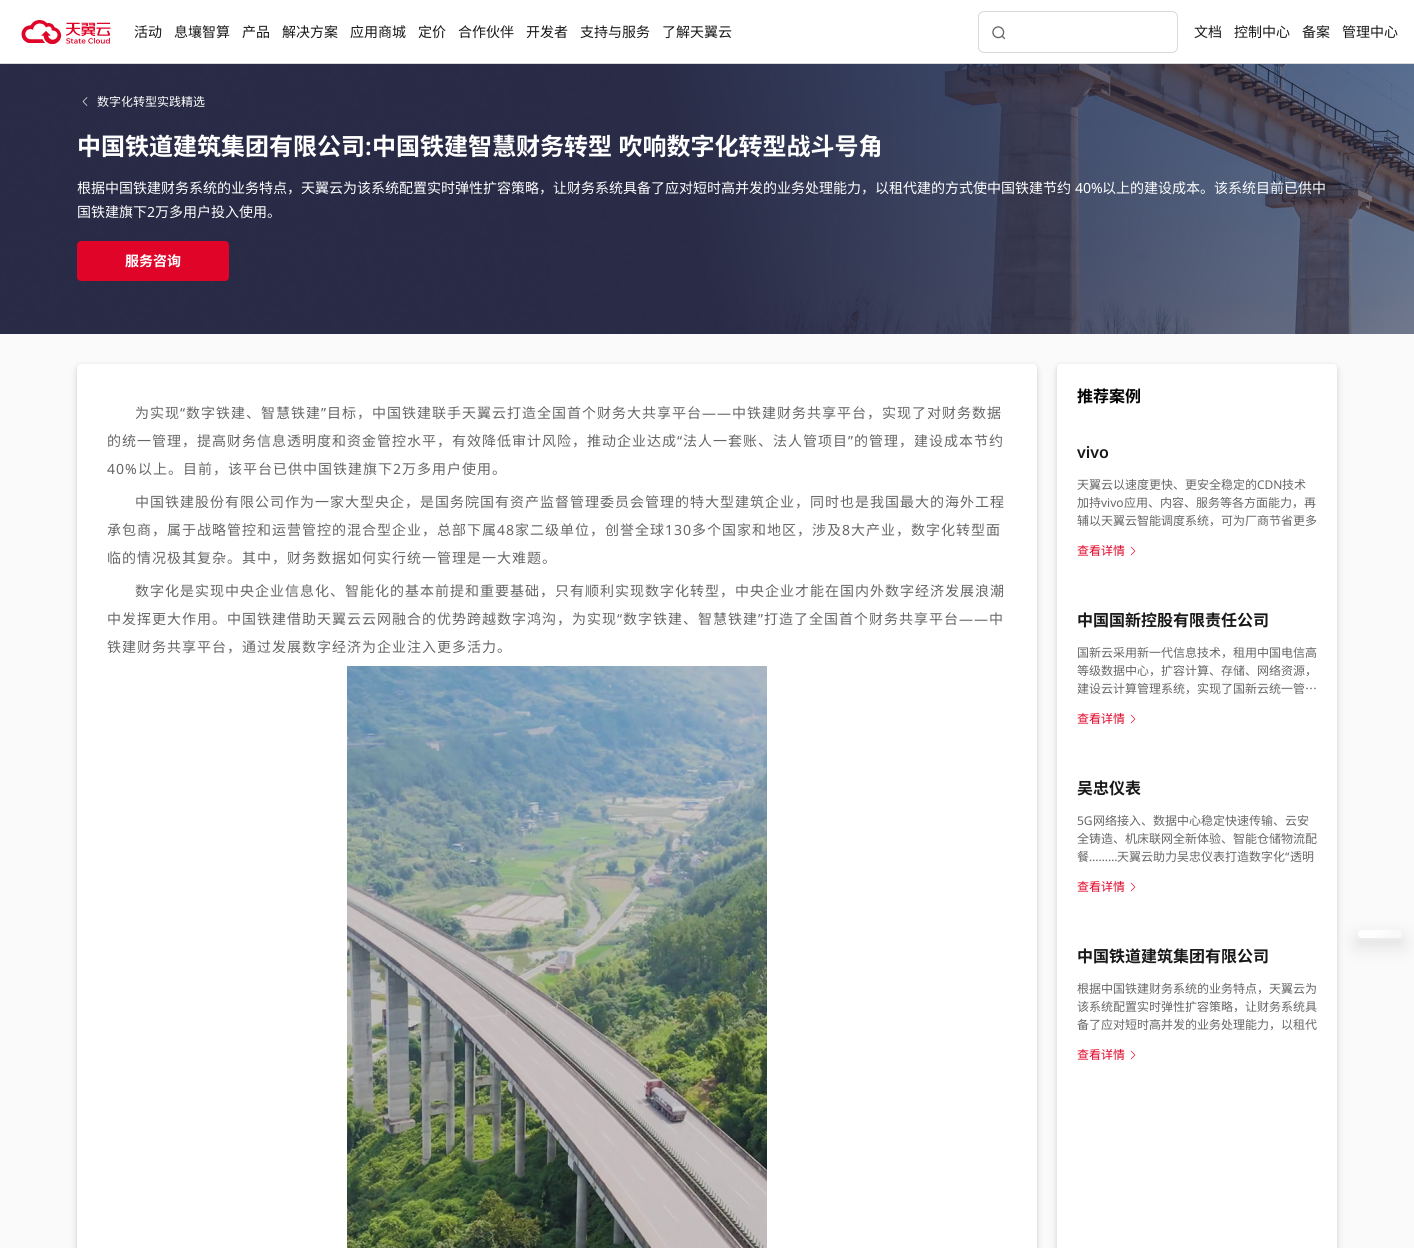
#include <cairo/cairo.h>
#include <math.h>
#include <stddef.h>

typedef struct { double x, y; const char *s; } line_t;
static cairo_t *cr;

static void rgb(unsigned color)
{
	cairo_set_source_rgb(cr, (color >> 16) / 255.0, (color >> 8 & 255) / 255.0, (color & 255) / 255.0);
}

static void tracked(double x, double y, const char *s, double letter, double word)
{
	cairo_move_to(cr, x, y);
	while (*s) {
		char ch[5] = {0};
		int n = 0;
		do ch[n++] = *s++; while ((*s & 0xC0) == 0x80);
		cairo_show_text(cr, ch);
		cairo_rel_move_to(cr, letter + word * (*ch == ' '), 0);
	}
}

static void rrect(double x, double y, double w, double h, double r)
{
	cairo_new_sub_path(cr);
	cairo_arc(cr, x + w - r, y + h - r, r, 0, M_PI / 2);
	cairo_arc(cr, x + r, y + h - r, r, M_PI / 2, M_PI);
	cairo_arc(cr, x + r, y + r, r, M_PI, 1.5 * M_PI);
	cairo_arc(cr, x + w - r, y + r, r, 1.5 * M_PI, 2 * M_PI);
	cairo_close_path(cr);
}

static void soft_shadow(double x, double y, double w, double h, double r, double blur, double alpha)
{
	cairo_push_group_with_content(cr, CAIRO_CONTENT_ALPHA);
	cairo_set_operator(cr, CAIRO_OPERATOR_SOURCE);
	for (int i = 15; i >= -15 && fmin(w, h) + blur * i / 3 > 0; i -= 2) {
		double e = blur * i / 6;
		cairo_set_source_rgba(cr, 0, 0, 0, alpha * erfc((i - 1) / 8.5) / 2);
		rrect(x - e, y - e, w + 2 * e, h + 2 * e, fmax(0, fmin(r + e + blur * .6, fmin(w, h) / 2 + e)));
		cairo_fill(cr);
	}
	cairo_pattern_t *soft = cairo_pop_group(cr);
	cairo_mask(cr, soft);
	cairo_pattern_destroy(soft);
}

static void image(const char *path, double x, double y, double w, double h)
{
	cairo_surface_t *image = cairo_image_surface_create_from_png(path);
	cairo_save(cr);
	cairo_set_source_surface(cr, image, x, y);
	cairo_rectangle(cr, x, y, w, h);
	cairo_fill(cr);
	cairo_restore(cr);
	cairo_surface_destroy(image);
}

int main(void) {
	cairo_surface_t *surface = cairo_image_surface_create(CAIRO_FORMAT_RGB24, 1414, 1248);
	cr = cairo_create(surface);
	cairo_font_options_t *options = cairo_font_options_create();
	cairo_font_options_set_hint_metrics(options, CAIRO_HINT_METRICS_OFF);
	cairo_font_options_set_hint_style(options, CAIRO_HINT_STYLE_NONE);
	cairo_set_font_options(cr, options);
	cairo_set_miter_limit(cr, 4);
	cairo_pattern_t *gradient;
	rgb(0xffffff);
	cairo_paint(cr);
	rgb(0xd9d9d9);
	cairo_rectangle(cr, 0, 63, 1414, 1);
	cairo_fill(cr);
	image("img/1.png", 21, 20, 90, 24);
	rrect(978.5, 11.5, 199, 41, 5.5);
	cairo_set_line_width(cr, 1);
	cairo_stroke(cr);
	image("img/2.png", 992, 26, 14, 14);
	image("img/3.png", 0, 64, 1414, 270);
	image("img/4.png", 82, 97, 6, 9);
	rgb(0xdf0428);
	rrect(77, 241, 152, 40, 4);
	cairo_fill(cr);
	rgb(0xfafafa);
	cairo_rectangle(cr, 0, 334, 1414, 914);
	cairo_fill(cr);
	rgb(0x000000);
	soft_shadow(77, 368, 960, 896, 4, 4, 0.1);
	soft_shadow(77, 365, 960, 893, 4, 2, 0.1);
	rgb(0xffffff);
	rrect(77, 364, 960, 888, 4);
	cairo_fill(cr);
	image("img/5.png", 347, 666, 420, 582);
	rgb(0x000000);
	soft_shadow(1057, 368, 280, 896, 4, 4, 0.1);
	soft_shadow(1057, 365, 280, 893, 4, 2, 0.1);
	rgb(0xffffff);
	rrect(1057, 364, 280, 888, 4);
	cairo_fill(cr);
	image("img/6.png", 1130, 546, 6, 10);
	image("img/6.png", 1130, 714, 6, 10);
	image("img/6.png", 1130, 882, 6, 10);
	image("img/6.png", 1130, 1050, 6, 10);
	rgb(0x000000);
	soft_shadow(1357, 937, 46, 10, 5, 9, 0.1);
	gradient = cairo_pattern_create_linear(1373, 922, 1387, 946);
	cairo_pattern_add_color_stop_rgba(gradient, 0.37, 1, 1, 1, 1);
	cairo_pattern_add_color_stop_rgba(gradient, 0.71, 0.976, 0.976, 0.976, 1);
	cairo_set_source(cr, gradient);
	cairo_pattern_destroy(gradient);
	rrect(1358, 930, 44, 8, 4);
	cairo_fill(cr);
	cairo_select_font_face(cr, "Noto Sans CJK SC", CAIRO_FONT_SLANT_NORMAL, CAIRO_FONT_WEIGHT_NORMAL);
	cairo_set_font_size(cr, 14);
	rgb(0x181818);
	{
		static const line_t items[] = {
			{134, 37, "活动"},
			{174, 37, "息壤智算"},
			{242, 37, "产品"},
			{282, 37, "解决方案"},
			{350, 37, "应用商城"},
			{418, 37, "定价"},
			{458, 37, "合作伙伴"},
			{526, 37, "开发者"},
			{580, 37, "支持与服务"},
			{662, 37, "了解天翼云"},
			{1194, 37, "文档"},
			{1234, 37, "控制中心"},
			{1302, 37, "备案"},
			{1342, 37, "管理中心"},
		};
		for (size_t i = 0; i < sizeof items / sizeof *items; i++) {
			cairo_move_to(cr, items[i].x, items[i].y);
			cairo_show_text(cr, items[i].s);
		}
	}
	cairo_set_font_size(cr, 12);
	rgb(0xffffff);
	cairo_move_to(cr, 97, 106);
	cairo_show_text(cr, "数字化转型实践精选");
	cairo_select_font_face(cr, "Noto Sans CJK SC", CAIRO_FONT_SLANT_NORMAL, CAIRO_FONT_WEIGHT_BOLD);
	cairo_set_font_size(cr, 24);
	cairo_move_to(cr, 77, 155);
	cairo_show_text(cr, "中国铁道建筑集团有限公司");
	cairo_select_font_face(cr, "Noto Sans SemiBold", CAIRO_FONT_SLANT_NORMAL, CAIRO_FONT_WEIGHT_NORMAL);
	cairo_move_to(cr, 365, 155);
	cairo_show_text(cr, ":");
	cairo_select_font_face(cr, "Noto Sans CJK SC", CAIRO_FONT_SLANT_NORMAL, CAIRO_FONT_WEIGHT_BOLD);
	tracked(372, 155, "中国铁建智慧财务转型 吹响数字化转型战斗号角", 0, 1);
	cairo_select_font_face(cr, "Noto Sans CJK SC", CAIRO_FONT_SLANT_NORMAL, CAIRO_FONT_WEIGHT_NORMAL);
	cairo_set_font_size(cr, 14);
	cairo_move_to(cr, 77, 193);
	cairo_show_text(cr, "根据中国铁建财务系统的业务特点，天翼云为该系统配置实时弹性扩容策略，让财务系统具备了应对短时高并发的业务处理能力，以租代建的方式使中国铁建节约");
	cairo_select_font_face(cr, "Noto Sans", CAIRO_FONT_SLANT_NORMAL, CAIRO_FONT_WEIGHT_NORMAL);
	cairo_move_to(cr, 1075, 193);
	cairo_show_text(cr, "40%");
	cairo_select_font_face(cr, "Noto Sans CJK SC", CAIRO_FONT_SLANT_NORMAL, CAIRO_FONT_WEIGHT_NORMAL);
	cairo_move_to(cr, 1102, 193);
	cairo_show_text(cr, "以上的建设成本。该系统目前已供中");
	cairo_move_to(cr, 77, 217);
	cairo_show_text(cr, "国铁建旗下");
	cairo_select_font_face(cr, "Noto Sans", CAIRO_FONT_SLANT_NORMAL, CAIRO_FONT_WEIGHT_NORMAL);
	cairo_move_to(cr, 147, 217);
	cairo_show_text(cr, "2");
	cairo_select_font_face(cr, "Noto Sans CJK SC", CAIRO_FONT_SLANT_NORMAL, CAIRO_FONT_WEIGHT_NORMAL);
	cairo_move_to(cr, 155, 217);
	cairo_show_text(cr, "万多用户投入使用。");
	cairo_select_font_face(cr, "Noto Sans CJK SC", CAIRO_FONT_SLANT_NORMAL, CAIRO_FONT_WEIGHT_BOLD);
	cairo_move_to(cr, 125, 266);
	cairo_show_text(cr, "服务咨询");
	cairo_select_font_face(cr, "Noto Sans CJK SC", CAIRO_FONT_SLANT_NORMAL, CAIRO_FONT_WEIGHT_NORMAL);
	rgb(0x666666);
	tracked(135, 418, "为实现", 1, 0);
	cairo_select_font_face(cr, "Noto Sans", CAIRO_FONT_SLANT_NORMAL, CAIRO_FONT_WEIGHT_NORMAL);
	tracked(180, 418, "“", 1, 0);
	cairo_select_font_face(cr, "Noto Sans CJK SC", CAIRO_FONT_SLANT_NORMAL, CAIRO_FONT_WEIGHT_NORMAL);
	tracked(186, 418, "数字铁建、智慧铁建", 1, 0);
	cairo_select_font_face(cr, "Noto Sans", CAIRO_FONT_SLANT_NORMAL, CAIRO_FONT_WEIGHT_NORMAL);
	tracked(321, 418, "”", 1, 0);
	cairo_select_font_face(cr, "Noto Sans CJK SC", CAIRO_FONT_SLANT_NORMAL, CAIRO_FONT_WEIGHT_NORMAL);
	tracked(327, 418, "目标，中国铁建联手天翼云打造全国首个财务大共享平台", 1, 0);
	tracked(732, 418, "中铁建财务共享平台，实现了对财务数据", 1, 0);
	cairo_select_font_face(cr, "Noto Sans", CAIRO_FONT_SLANT_NORMAL, CAIRO_FONT_WEIGHT_NORMAL);
	tracked(702, 418, "——", 1, 0);
	cairo_select_font_face(cr, "Noto Sans CJK SC", CAIRO_FONT_SLANT_NORMAL, CAIRO_FONT_WEIGHT_NORMAL);
	tracked(107, 446, "的统一管理，提高财务信息透明度和资金管控水平，有效降低审计风险，推动企业达成", 1, 0);
	cairo_select_font_face(cr, "Noto Sans", CAIRO_FONT_SLANT_NORMAL, CAIRO_FONT_WEIGHT_NORMAL);
	tracked(677, 446, "“", 1, 0);
	cairo_select_font_face(cr, "Noto Sans CJK SC", CAIRO_FONT_SLANT_NORMAL, CAIRO_FONT_WEIGHT_NORMAL);
	tracked(683, 446, "法人一套账、法人管项目", 1, 0);
	cairo_select_font_face(cr, "Noto Sans", CAIRO_FONT_SLANT_NORMAL, CAIRO_FONT_WEIGHT_NORMAL);
	tracked(848, 446, "”", 1, 0);
	cairo_select_font_face(cr, "Noto Sans CJK SC", CAIRO_FONT_SLANT_NORMAL, CAIRO_FONT_WEIGHT_NORMAL);
	tracked(854, 446, "的管理，建设成本节约", 1, 0);
	cairo_select_font_face(cr, "Noto Sans", CAIRO_FONT_SLANT_NORMAL, CAIRO_FONT_WEIGHT_NORMAL);
	tracked(107, 474, "40%", 1, 0);
	cairo_select_font_face(cr, "Noto Sans CJK SC", CAIRO_FONT_SLANT_NORMAL, CAIRO_FONT_WEIGHT_NORMAL);
	tracked(138, 474, "以上。目前，该平台已供中国铁建旗下", 1, 0);
	cairo_select_font_face(cr, "Noto Sans", CAIRO_FONT_SLANT_NORMAL, CAIRO_FONT_WEIGHT_NORMAL);
	tracked(393, 474, "2", 1, 0);
	cairo_select_font_face(cr, "Noto Sans CJK SC", CAIRO_FONT_SLANT_NORMAL, CAIRO_FONT_WEIGHT_NORMAL);
	{
		static const line_t items[] = {
			{402, 474, "万多用户使用。"},
			{135, 507, "中国铁建股份有限公司作为一家大型央企，是国务院国有资产监督管理委员会管理的特大型建筑企业，同时也是我国最大的海外工程"},
			{107, 535, "承包商，属于战略管控和运营管控的混合型企业，总部下属"},
		};
		for (size_t i = 0; i < sizeof items / sizeof *items; i++) {
			tracked(items[i].x, items[i].y, items[i].s, 1, 0);
		}
	}
	cairo_select_font_face(cr, "Noto Sans", CAIRO_FONT_SLANT_NORMAL, CAIRO_FONT_WEIGHT_NORMAL);
	tracked(497, 535, "48", 1, 0);
	cairo_select_font_face(cr, "Noto Sans CJK SC", CAIRO_FONT_SLANT_NORMAL, CAIRO_FONT_WEIGHT_NORMAL);
	tracked(515, 535, "家二级单位，创誉全球", 1, 0);
	cairo_select_font_face(cr, "Noto Sans", CAIRO_FONT_SLANT_NORMAL, CAIRO_FONT_WEIGHT_NORMAL);
	tracked(665, 535, "130", 1, 0);
	cairo_select_font_face(cr, "Noto Sans CJK SC", CAIRO_FONT_SLANT_NORMAL, CAIRO_FONT_WEIGHT_NORMAL);
	tracked(692, 535, "多个国家和地区，涉及", 1, 0);
	cairo_select_font_face(cr, "Noto Sans", CAIRO_FONT_SLANT_NORMAL, CAIRO_FONT_WEIGHT_NORMAL);
	tracked(842, 535, "8", 1, 0);
	cairo_select_font_face(cr, "Noto Sans CJK SC", CAIRO_FONT_SLANT_NORMAL, CAIRO_FONT_WEIGHT_NORMAL);
	{
		static const line_t items[] = {
			{851, 535, "大产业，数字化转型面"},
			{107, 563, "临的情况极其复杂。其中，财务数据如何实行统一管理是一大难题。"},
			{135, 596, "数字化是实现中央企业信息化、智能化的基本前提和重要基础，只有顺利实现数字化转型，中央企业才能在国内外数字经济发展浪潮"},
			{107, 624, "中发挥更大作用。中国铁建借助天翼云云网融合的优势跨越数字鸿沟，为实现"},
		};
		for (size_t i = 0; i < sizeof items / sizeof *items; i++) {
			tracked(items[i].x, items[i].y, items[i].s, 1, 0);
		}
	}
	cairo_select_font_face(cr, "Noto Sans", CAIRO_FONT_SLANT_NORMAL, CAIRO_FONT_WEIGHT_NORMAL);
	tracked(617, 624, "“", 1, 0);
	cairo_select_font_face(cr, "Noto Sans CJK SC", CAIRO_FONT_SLANT_NORMAL, CAIRO_FONT_WEIGHT_NORMAL);
	tracked(623, 624, "数字铁建、智慧铁建", 1, 0);
	cairo_select_font_face(cr, "Noto Sans", CAIRO_FONT_SLANT_NORMAL, CAIRO_FONT_WEIGHT_NORMAL);
	tracked(758, 624, "”", 1, 0);
	cairo_select_font_face(cr, "Noto Sans CJK SC", CAIRO_FONT_SLANT_NORMAL, CAIRO_FONT_WEIGHT_NORMAL);
	tracked(764, 624, "打造了全国首个财务共享平台", 1, 0);
	tracked(989, 624, "中", 1, 0);
	cairo_select_font_face(cr, "Noto Sans", CAIRO_FONT_SLANT_NORMAL, CAIRO_FONT_WEIGHT_NORMAL);
	tracked(959, 624, "——", 1, 0);
	cairo_select_font_face(cr, "Noto Sans CJK SC", CAIRO_FONT_SLANT_NORMAL, CAIRO_FONT_WEIGHT_NORMAL);
	tracked(107, 652, "铁建财务共享平台，通过发展数字经济为企业注入更多活力。", 1, 0);
	cairo_select_font_face(cr, "Noto Sans CJK SC", CAIRO_FONT_SLANT_NORMAL, CAIRO_FONT_WEIGHT_BOLD);
	cairo_set_font_size(cr, 16);
	rgb(0x000000);
	cairo_move_to(cr, 1077, 402);
	cairo_show_text(cr, "推荐案例");
	cairo_select_font_face(cr, "Noto Sans SemiBold", CAIRO_FONT_SLANT_NORMAL, CAIRO_FONT_WEIGHT_NORMAL);
	rgb(0x181818);
	cairo_move_to(cr, 1077, 458);
	cairo_show_text(cr, "vivo");
	cairo_select_font_face(cr, "Noto Sans CJK SC", CAIRO_FONT_SLANT_NORMAL, CAIRO_FONT_WEIGHT_NORMAL);
	cairo_set_font_size(cr, 12);
	rgb(0x666666);
	cairo_move_to(cr, 1077, 489);
	cairo_show_text(cr, "天翼云以速度更快、更安全稳定的");
	cairo_select_font_face(cr, "Noto Sans", CAIRO_FONT_SLANT_NORMAL, CAIRO_FONT_WEIGHT_NORMAL);
	cairo_move_to(cr, 1257, 489);
	cairo_show_text(cr, "CDN");
	cairo_select_font_face(cr, "Noto Sans CJK SC", CAIRO_FONT_SLANT_NORMAL, CAIRO_FONT_WEIGHT_NORMAL);
	cairo_move_to(cr, 1282, 489);
	cairo_show_text(cr, "技术");
	cairo_move_to(cr, 1077, 507);
	cairo_show_text(cr, "加持");
	cairo_select_font_face(cr, "Noto Sans", CAIRO_FONT_SLANT_NORMAL, CAIRO_FONT_WEIGHT_NORMAL);
	cairo_move_to(cr, 1101, 507);
	cairo_show_text(cr, "vivo");
	cairo_select_font_face(cr, "Noto Sans CJK SC", CAIRO_FONT_SLANT_NORMAL, CAIRO_FONT_WEIGHT_NORMAL);
	cairo_move_to(cr, 1124, 507);
	cairo_show_text(cr, "应用、内容、服务等各方面能力，再");
	cairo_move_to(cr, 1077, 525);
	cairo_show_text(cr, "辅以天翼云智能调度系统，可为厂商节省更多");
	rgb(0xdf0428);
	cairo_move_to(cr, 1077, 555);
	cairo_show_text(cr, "查看详情");
	cairo_select_font_face(cr, "Noto Sans CJK SC", CAIRO_FONT_SLANT_NORMAL, CAIRO_FONT_WEIGHT_BOLD);
	cairo_set_font_size(cr, 16);
	rgb(0x181818);
	cairo_move_to(cr, 1077, 626);
	cairo_show_text(cr, "中国国新控股有限责任公司");
	cairo_select_font_face(cr, "Noto Sans CJK SC", CAIRO_FONT_SLANT_NORMAL, CAIRO_FONT_WEIGHT_NORMAL);
	cairo_set_font_size(cr, 12);
	rgb(0x666666);
	{
		static const line_t items[] = {
			{1077, 657, "国新云采用新一代信息技术，租用中国电信高"},
			{1077, 675, "等级数据中心，扩容计算、存储、网络资源，"},
			{1077, 693, "建设云计算管理系统，实现了国新云统一管…"},
		};
		for (size_t i = 0; i < sizeof items / sizeof *items; i++) {
			cairo_move_to(cr, items[i].x, items[i].y);
			cairo_show_text(cr, items[i].s);
		}
	}
	rgb(0xdf0428);
	cairo_move_to(cr, 1077, 723);
	cairo_show_text(cr, "查看详情");
	cairo_select_font_face(cr, "Noto Sans CJK SC", CAIRO_FONT_SLANT_NORMAL, CAIRO_FONT_WEIGHT_BOLD);
	cairo_set_font_size(cr, 16);
	rgb(0x181818);
	cairo_move_to(cr, 1077, 794);
	cairo_show_text(cr, "吴忠仪表");
	cairo_select_font_face(cr, "Noto Sans", CAIRO_FONT_SLANT_NORMAL, CAIRO_FONT_WEIGHT_NORMAL);
	cairo_set_font_size(cr, 12);
	rgb(0x666666);
	cairo_move_to(cr, 1077, 825);
	cairo_show_text(cr, "5G");
	cairo_select_font_face(cr, "Noto Sans CJK SC", CAIRO_FONT_SLANT_NORMAL, CAIRO_FONT_WEIGHT_NORMAL);
	{
		static const line_t items[] = {
			{1093, 825, "网络接入、数据中心稳定快速传输、云安"},
			{1077, 843, "全铸造、机床联网全新体验、智能仓储物流配"},
			{1077, 861, "餐"},
			{1117, 861, "天翼云助力吴忠仪表打造数字化"},
		};
		for (size_t i = 0; i < sizeof items / sizeof *items; i++) {
			cairo_move_to(cr, items[i].x, items[i].y);
			cairo_show_text(cr, items[i].s);
		}
	}
	cairo_select_font_face(cr, "Noto Sans", CAIRO_FONT_SLANT_NORMAL, CAIRO_FONT_WEIGHT_NORMAL);
	cairo_move_to(cr, 1285, 861);
	cairo_show_text(cr, "“");
	cairo_select_font_face(cr, "Noto Sans CJK SC", CAIRO_FONT_SLANT_NORMAL, CAIRO_FONT_WEIGHT_NORMAL);
	cairo_move_to(cr, 1290, 861);
	cairo_show_text(cr, "透明");
	cairo_select_font_face(cr, "Noto Sans", CAIRO_FONT_SLANT_NORMAL, CAIRO_FONT_WEIGHT_NORMAL);
	cairo_move_to(cr, 1089, 861);
	cairo_show_text(cr, "………");
	cairo_select_font_face(cr, "Noto Sans CJK SC", CAIRO_FONT_SLANT_NORMAL, CAIRO_FONT_WEIGHT_NORMAL);
	rgb(0xdf0428);
	cairo_move_to(cr, 1077, 891);
	cairo_show_text(cr, "查看详情");
	cairo_select_font_face(cr, "Noto Sans CJK SC", CAIRO_FONT_SLANT_NORMAL, CAIRO_FONT_WEIGHT_BOLD);
	cairo_set_font_size(cr, 16);
	rgb(0x181818);
	cairo_move_to(cr, 1077, 962);
	cairo_show_text(cr, "中国铁道建筑集团有限公司");
	cairo_select_font_face(cr, "Noto Sans CJK SC", CAIRO_FONT_SLANT_NORMAL, CAIRO_FONT_WEIGHT_NORMAL);
	cairo_set_font_size(cr, 12);
	rgb(0x666666);
	{
		static const line_t items[] = {
			{1077, 993, "根据中国铁建财务系统的业务特点，天翼云为"},
			{1077, 1011, "该系统配置实时弹性扩容策略，让财务系统具"},
			{1077, 1029, "备了应对短时高并发的业务处理能力，以租代"},
		};
		for (size_t i = 0; i < sizeof items / sizeof *items; i++) {
			cairo_move_to(cr, items[i].x, items[i].y);
			cairo_show_text(cr, items[i].s);
		}
	}
	rgb(0xdf0428);
	cairo_move_to(cr, 1077, 1059);
	cairo_show_text(cr, "查看详情");
	cairo_surface_write_to_png(surface, "page.png");
	cairo_font_options_destroy(options);
	cairo_destroy(cr);
	cairo_surface_destroy(surface);
	return 0;
}
